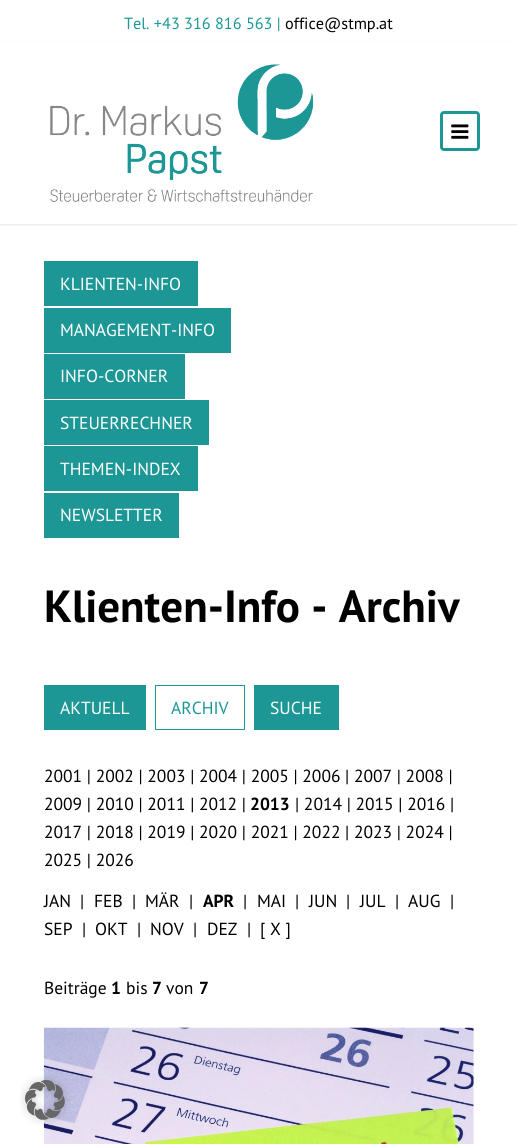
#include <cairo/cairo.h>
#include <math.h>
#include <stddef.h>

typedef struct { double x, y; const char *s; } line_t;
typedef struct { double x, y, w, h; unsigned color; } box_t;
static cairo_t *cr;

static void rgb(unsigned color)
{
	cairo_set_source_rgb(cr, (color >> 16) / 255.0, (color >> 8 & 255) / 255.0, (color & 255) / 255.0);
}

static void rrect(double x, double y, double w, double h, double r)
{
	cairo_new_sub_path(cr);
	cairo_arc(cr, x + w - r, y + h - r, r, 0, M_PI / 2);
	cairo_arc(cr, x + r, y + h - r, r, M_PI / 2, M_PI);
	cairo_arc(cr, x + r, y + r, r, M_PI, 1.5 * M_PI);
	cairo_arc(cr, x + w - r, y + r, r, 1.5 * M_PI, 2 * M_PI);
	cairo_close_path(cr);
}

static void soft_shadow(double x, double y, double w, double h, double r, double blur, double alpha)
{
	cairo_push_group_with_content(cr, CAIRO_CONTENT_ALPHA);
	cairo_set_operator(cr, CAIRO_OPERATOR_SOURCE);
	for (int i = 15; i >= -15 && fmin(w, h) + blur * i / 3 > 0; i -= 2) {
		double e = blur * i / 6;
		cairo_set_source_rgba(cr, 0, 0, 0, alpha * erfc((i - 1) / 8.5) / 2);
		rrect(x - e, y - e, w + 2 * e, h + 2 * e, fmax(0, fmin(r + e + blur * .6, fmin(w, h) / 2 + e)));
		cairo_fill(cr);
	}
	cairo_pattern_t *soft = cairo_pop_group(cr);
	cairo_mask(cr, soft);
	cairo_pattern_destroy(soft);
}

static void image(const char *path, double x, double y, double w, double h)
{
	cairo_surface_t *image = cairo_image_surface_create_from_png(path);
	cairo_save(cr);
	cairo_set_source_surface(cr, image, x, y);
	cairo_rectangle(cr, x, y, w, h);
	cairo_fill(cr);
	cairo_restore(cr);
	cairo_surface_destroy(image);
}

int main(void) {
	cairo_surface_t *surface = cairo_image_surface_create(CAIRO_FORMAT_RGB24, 517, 1144);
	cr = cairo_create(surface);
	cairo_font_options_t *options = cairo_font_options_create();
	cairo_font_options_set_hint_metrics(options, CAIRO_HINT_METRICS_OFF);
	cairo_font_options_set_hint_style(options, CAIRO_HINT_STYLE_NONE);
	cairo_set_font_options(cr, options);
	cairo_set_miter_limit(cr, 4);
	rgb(0xffffff);
	cairo_paint(cr);
	rgb(0x000000);
	soft_shadow(0, 43, 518, 182, 0, 1, 0.1);
	rgb(0xffffff);
	cairo_rectangle(cr, 0, 42, 517, 182);
	cairo_fill(cr);
	image("img/1.png", 50, 64, 264, 138);
	rrect(441.5, 112.5, 37, 37, 2.5);
	rgb(0x1c9795);
	cairo_set_line_width(cr, 3);
	cairo_stroke(cr);
	image("img/2.png", 451, 124, 18, 15);
	{
		static const box_t items[] = {
			{44, 261, 154, 45, 0x1c9795},
			{44, 308, 187, 45, 0x1c9795},
			{44, 354, 141, 45, 0x1c9795},
			{44, 400, 165, 45, 0x1c9795},
			{44, 446, 154, 45, 0x1c9795},
			{44, 493, 135, 45, 0x1c9795},
			{44, 685, 102, 45, 0x1c9795},
		};
		for (size_t i = 0; i < sizeof items / sizeof *items; i++) {
			rgb(items[i].color);
			cairo_rectangle(cr, items[i].x, items[i].y, items[i].w, items[i].h);
			cairo_fill(cr);
		}
	}
	cairo_rectangle(cr, 155.5, 685.5, 89, 44);
	cairo_set_line_width(cr, 1);
	cairo_stroke(cr);
	cairo_rectangle(cr, 254, 685, 85, 45);
	cairo_fill(cr);
	image("img/3.png", 43, 1027, 431, 117);
	image("img/4.png", 20, 1075, 50, 50);
	cairo_select_font_face(cr, "PT Sans", CAIRO_FONT_SLANT_NORMAL, CAIRO_FONT_WEIGHT_NORMAL);
	cairo_set_font_size(cr, 16.25);
	cairo_move_to(cr, 124, 29);
	cairo_show_text(cr, "Tel. +43 316 816 563 |");
	rgb(0x000000);
	cairo_move_to(cr, 285, 29);
	cairo_show_text(cr, "office@stmp.at");
	cairo_set_font_size(cr, 17.5);
	rgb(0xffffff);
	{
		static const line_t items[] = {
			{60, 290, "KLIENTEN-INFO"},
			{60, 336, "MANAGEMENT-INFO"},
			{60, 382, "INFO-CORNER"},
			{60, 429, "STEUERRECHNER"},
			{60, 475, "THEMEN-INDEX"},
			{60, 521, "NEWSLETTER"},
		};
		for (size_t i = 0; i < sizeof items / sizeof *items; i++) {
			cairo_move_to(cr, items[i].x, items[i].y);
			cairo_show_text(cr, items[i].s);
		}
	}
	cairo_select_font_face(cr, "PT Sans", CAIRO_FONT_SLANT_NORMAL, CAIRO_FONT_WEIGHT_BOLD);
	cairo_set_font_size(cr, 45);
	rgb(0x000000);
	cairo_move_to(cr, 44, 622);
	cairo_show_text(cr, "Klienten-Info - Archiv");
	cairo_select_font_face(cr, "PT Sans", CAIRO_FONT_SLANT_NORMAL, CAIRO_FONT_WEIGHT_NORMAL);
	cairo_set_font_size(cr, 17.5);
	rgb(0xffffff);
	cairo_move_to(cr, 60, 714);
	cairo_show_text(cr, "AKTUELL");
	rgb(0x1c9795);
	cairo_move_to(cr, 171, 714);
	cairo_show_text(cr, "ARCHIV");
	rgb(0xffffff);
	cairo_move_to(cr, 270, 714);
	cairo_show_text(cr, "SUCHE");
	rgb(0x000000);
	cairo_move_to(cr, 44, 782);
	cairo_show_text(cr, "2001 | 2002 | 2003 | 2004 | 2005 | 2006 | 2007 | 2008 |");
	cairo_move_to(cr, 44, 810);
	cairo_show_text(cr, "2009 | 2010 | 2011 | 2012 |");
	cairo_select_font_face(cr, "PT Sans", CAIRO_FONT_SLANT_NORMAL, CAIRO_FONT_WEIGHT_BOLD);
	cairo_move_to(cr, 250, 810);
	cairo_show_text(cr, "2013");
	cairo_select_font_face(cr, "PT Sans", CAIRO_FONT_SLANT_NORMAL, CAIRO_FONT_WEIGHT_NORMAL);
	{
		static const line_t items[] = {
			{295, 810, "| 2014 | 2015 | 2016 |"},
			{44, 838, "2017 | 2018 | 2019 | 2020 | 2021 | 2022 | 2023 | 2024 |"},
			{44, 866, "2025 | 2026"},
			{44, 907, "JAN"},
			{80, 907, "|"},
			{94, 907, "FEB"},
			{132, 907, "|"},
			{145, 907, "MÄR"},
			{189, 907, "|"},
		};
		for (size_t i = 0; i < sizeof items / sizeof *items; i++) {
			cairo_move_to(cr, items[i].x, items[i].y);
			cairo_show_text(cr, items[i].s);
		}
	}
	cairo_select_font_face(cr, "PT Sans", CAIRO_FONT_SLANT_NORMAL, CAIRO_FONT_WEIGHT_BOLD);
	cairo_move_to(cr, 203, 907);
	cairo_show_text(cr, "APR");
	cairo_select_font_face(cr, "PT Sans", CAIRO_FONT_SLANT_NORMAL, CAIRO_FONT_WEIGHT_NORMAL);
	{
		static const line_t items[] = {
			{243, 907, "|"},
			{257, 907, "MAI"},
			{295, 907, "|"},
			{309, 907, "JUN"},
			{346, 907, "|"},
			{360, 907, "JUL"},
			{395, 907, "|"},
			{408, 907, "AUG"},
			{450, 907, "|"},
			{44, 935, "SEP"},
			{82, 935, "|"},
			{95, 935, "OKT"},
			{137, 935, "|"},
			{150, 935, "NOV"},
			{193, 935, "|"},
			{207, 935, "DEZ"},
			{247, 935, "|"},
			{260, 935, "[ X ]"},
			{44, 994, "Beiträge"},
		};
		for (size_t i = 0; i < sizeof items / sizeof *items; i++) {
			cairo_move_to(cr, items[i].x, items[i].y);
			cairo_show_text(cr, items[i].s);
		}
	}
	cairo_select_font_face(cr, "PT Sans", CAIRO_FONT_SLANT_NORMAL, CAIRO_FONT_WEIGHT_BOLD);
	cairo_move_to(cr, 111, 994);
	cairo_show_text(cr, "1");
	cairo_select_font_face(cr, "PT Sans", CAIRO_FONT_SLANT_NORMAL, CAIRO_FONT_WEIGHT_NORMAL);
	cairo_move_to(cr, 126, 994);
	cairo_show_text(cr, "bis");
	cairo_select_font_face(cr, "PT Sans", CAIRO_FONT_SLANT_NORMAL, CAIRO_FONT_WEIGHT_BOLD);
	cairo_move_to(cr, 152, 994);
	cairo_show_text(cr, "7");
	cairo_select_font_face(cr, "PT Sans", CAIRO_FONT_SLANT_NORMAL, CAIRO_FONT_WEIGHT_NORMAL);
	cairo_move_to(cr, 166, 994);
	cairo_show_text(cr, "von");
	cairo_select_font_face(cr, "PT Sans", CAIRO_FONT_SLANT_NORMAL, CAIRO_FONT_WEIGHT_BOLD);
	cairo_move_to(cr, 199, 994);
	cairo_show_text(cr, "7");
	cairo_surface_write_to_png(surface, "page.png");
	cairo_font_options_destroy(options);
	cairo_destroy(cr);
	cairo_surface_destroy(surface);
	return 0;
}
